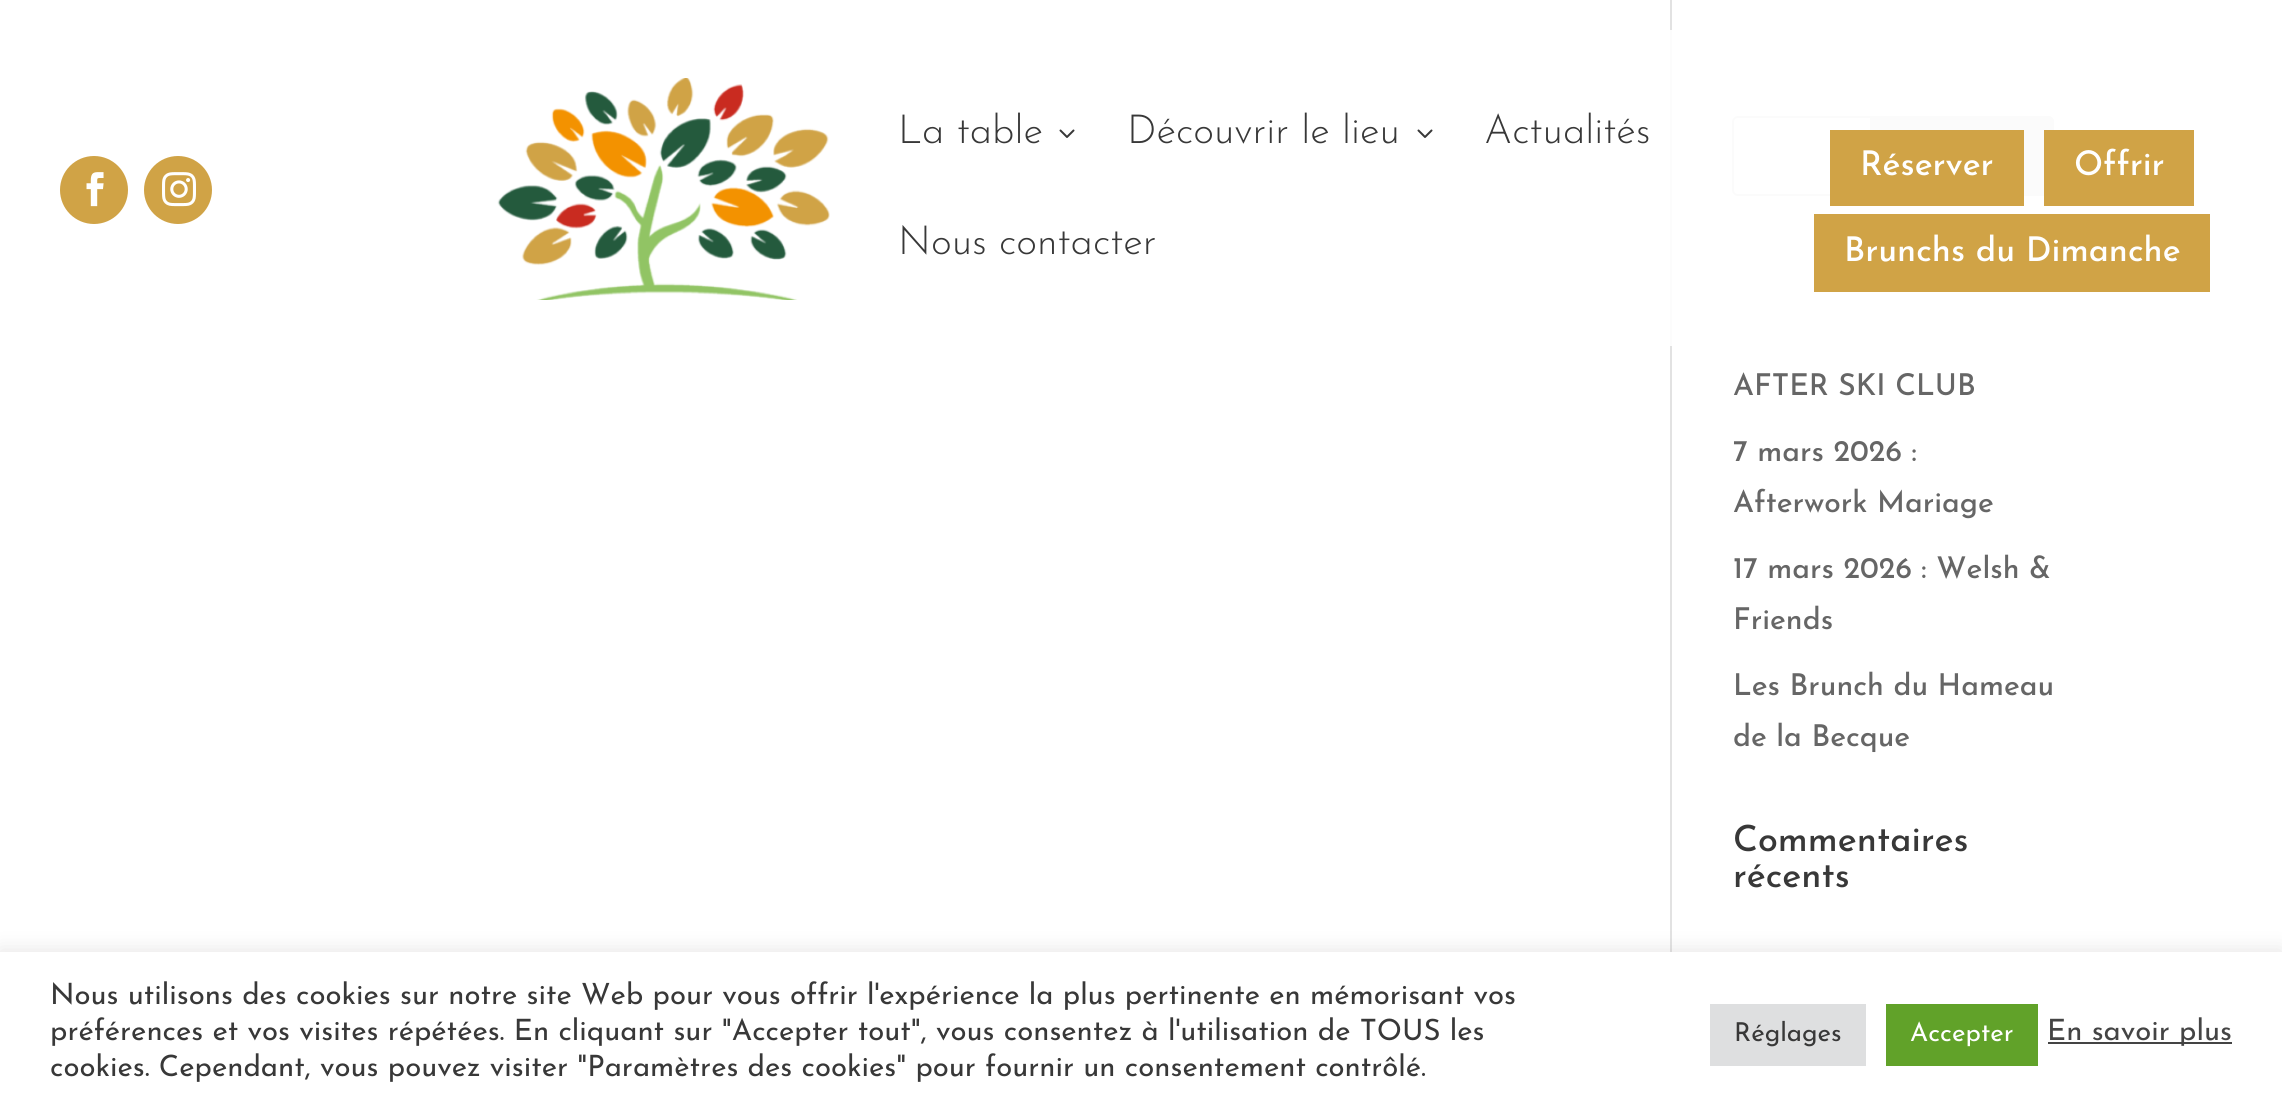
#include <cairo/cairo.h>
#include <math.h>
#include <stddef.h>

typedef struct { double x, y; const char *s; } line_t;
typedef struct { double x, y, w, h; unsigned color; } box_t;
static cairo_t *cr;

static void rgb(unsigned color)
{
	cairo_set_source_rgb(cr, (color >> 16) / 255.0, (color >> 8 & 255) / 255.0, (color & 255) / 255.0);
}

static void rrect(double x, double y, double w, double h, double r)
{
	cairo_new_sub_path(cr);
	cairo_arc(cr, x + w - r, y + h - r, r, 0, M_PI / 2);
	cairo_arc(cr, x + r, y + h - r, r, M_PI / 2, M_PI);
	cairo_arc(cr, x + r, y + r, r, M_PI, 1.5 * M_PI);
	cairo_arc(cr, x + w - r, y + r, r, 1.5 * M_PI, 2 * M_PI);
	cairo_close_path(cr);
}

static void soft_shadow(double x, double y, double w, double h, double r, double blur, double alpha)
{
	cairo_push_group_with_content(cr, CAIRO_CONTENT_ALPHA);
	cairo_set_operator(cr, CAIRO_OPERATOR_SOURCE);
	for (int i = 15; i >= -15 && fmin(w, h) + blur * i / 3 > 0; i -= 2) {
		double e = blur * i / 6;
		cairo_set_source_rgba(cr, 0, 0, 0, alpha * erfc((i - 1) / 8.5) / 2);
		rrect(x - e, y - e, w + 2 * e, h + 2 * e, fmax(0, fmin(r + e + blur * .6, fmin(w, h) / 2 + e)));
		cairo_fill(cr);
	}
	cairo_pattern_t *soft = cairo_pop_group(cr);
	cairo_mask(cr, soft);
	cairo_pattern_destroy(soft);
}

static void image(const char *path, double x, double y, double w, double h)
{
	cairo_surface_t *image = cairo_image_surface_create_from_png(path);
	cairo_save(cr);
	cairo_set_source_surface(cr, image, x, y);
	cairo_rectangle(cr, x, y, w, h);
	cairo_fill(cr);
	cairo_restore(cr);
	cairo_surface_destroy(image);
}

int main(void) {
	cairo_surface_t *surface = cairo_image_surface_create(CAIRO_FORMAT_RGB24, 2282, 1115);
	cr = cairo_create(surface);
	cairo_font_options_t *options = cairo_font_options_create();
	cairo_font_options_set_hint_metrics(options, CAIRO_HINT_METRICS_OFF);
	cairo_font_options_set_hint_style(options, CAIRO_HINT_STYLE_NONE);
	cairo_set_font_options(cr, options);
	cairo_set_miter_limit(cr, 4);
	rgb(0xffffff);
	cairo_paint(cr);
	rgb(0xe2e2e2);
	cairo_rectangle(cr, 1670, 0, 2, 952);
	cairo_fill(cr);
	rrect(1733, 117, 320, 78, 5);
	rgb(0xdddddd);
	cairo_stroke(cr);
	cairo_new_path(cr);
	cairo_move_to(cr, 1871, 117);
	cairo_line_to(cr, 2048, 117);
	cairo_curve_to(cr, 2051, 117, 2053, 119, 2053, 122);
	cairo_line_to(cr, 2053, 190);
	cairo_curve_to(cr, 2053, 193, 2051, 195, 2048, 195);
	cairo_line_to(cr, 1871, 195);
	cairo_close_path(cr);
	cairo_fill_preserve(cr);
	cairo_stroke(cr);
	cairo_set_source_rgba(cr, 1, 1, 1, 0.88);
	cairo_rectangle(cr, 1670, 30, 384, 316);
	cairo_fill(cr);
	rgb(0xd0a346);
	cairo_arc(cr, 94, 190, 34, 0, 2 * M_PI);
	cairo_fill(cr);
	image("img/1.png", 86, 172, 18, 35);
	cairo_arc(cr, 178, 190, 34, 0, 2 * M_PI);
	cairo_fill(cr);
	image("img/2.png", 162, 172, 34, 35);
	image("img/3.png", 497, 78, 333, 222);
	image("img/4.png", 1059, 129, 16, 9);
	image("img/4.png", 1417, 129, 16, 9);
	{
		static const box_t items[] = {
			{1830, 130, 194, 76, 0xd0a346},
			{2044, 130, 150, 76, 0xd0a346},
			{1814, 214, 396, 78, 0xd0a346},
		};
		for (size_t i = 0; i < sizeof items / sizeof *items; i++) {
			rgb(items[i].color);
			cairo_rectangle(cr, items[i].x, items[i].y, items[i].w, items[i].h);
			cairo_fill(cr);
		}
	}
	rgb(0xacabab);
	soft_shadow(0, 950, 2282, 164, 0, 10, 0.3);
	{
		static const box_t items[] = {
			{0, 952, 2282, 163, 0xffffff},
			{1710, 1004, 156, 62, 0xdedfe0},
			{1886, 1004, 152, 62, 0x61a229},
			{2048, 1042, 184, 2, 0x444444},
		};
		for (size_t i = 0; i < sizeof items / sizeof *items; i++) {
			rgb(items[i].color);
			cairo_rectangle(cr, items[i].x, items[i].y, items[i].w, items[i].h);
			cairo_fill(cr);
		}
	}
	cairo_select_font_face(cr, "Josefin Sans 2 Thin", CAIRO_FONT_SLANT_NORMAL, CAIRO_FONT_WEIGHT_NORMAL);
	cairo_set_font_size(cr, 40);
	rgb(0x383838);
	{
		static const line_t items[] = {
			{898, 143, "La table"},
			{1127, 143, "Découvrir le lieu"},
			{1484, 143, "Actualités"},
			{898, 254, "Nous contacter"},
		};
		for (size_t i = 0; i < sizeof items / sizeof *items; i++) {
			cairo_move_to(cr, items[i].x, items[i].y);
			cairo_show_text(cr, items[i].s);
		}
	}
	cairo_select_font_face(cr, "Josefin Sans Thin", CAIRO_FONT_SLANT_NORMAL, CAIRO_FONT_WEIGHT_NORMAL);
	cairo_set_font_size(cr, 34);
	rgb(0xffffff);
	{
		static const line_t items[] = {
			{1860, 175, "Réserver"},
			{2074, 175, "Offrir"},
			{1844, 261, "Brunchs du Dimanche"},
		};
		for (size_t i = 0; i < sizeof items / sizeof *items; i++) {
			cairo_move_to(cr, items[i].x, items[i].y);
			cairo_show_text(cr, items[i].s);
		}
	}
	cairo_set_font_size(cr, 30);
	rgb(0x666666);
	{
		static const line_t items[] = {
			{1733, 395, "AFTER SKI CLUB"},
			{1733, 461, "7 mars 2026 :"},
			{1733, 512, "Afterwork Mariage"},
			{1733, 578, "17 mars 2026 : Welsh &"},
			{1733, 629, "Friends"},
			{1733, 695, "Les Brunch du Hameau"},
			{1733, 746, "de la Becque"},
		};
		for (size_t i = 0; i < sizeof items / sizeof *items; i++) {
			cairo_move_to(cr, items[i].x, items[i].y);
			cairo_show_text(cr, items[i].s);
		}
	}
	cairo_set_font_size(cr, 36);
	rgb(0x383838);
	cairo_move_to(cr, 1733, 851);
	cairo_show_text(cr, "Commentaires");
	cairo_move_to(cr, 1733, 887);
	cairo_show_text(cr, "récents");
	cairo_select_font_face(cr, "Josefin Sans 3 Thin", CAIRO_FONT_SLANT_NORMAL, CAIRO_FONT_WEIGHT_NORMAL);
	cairo_set_font_size(cr, 29.35);
	{
		static const line_t items[] = {
			{50, 1004, "Nous utilisons des cookies sur notre site Web pour vous offrir l'expérience la plus pertinente en mémorisant vos"},
			{50, 1040, "préférences et vos visites répétées. En cliquant sur \"Accepter tout\", vous consentez à l'utilisation de TOUS les"},
			{50, 1076, "cookies. Cependant, vous pouvez visiter \"Paramètres des cookies\" pour fournir un consentement contrôlé."},
		};
		for (size_t i = 0; i < sizeof items / sizeof *items; i++) {
			cairo_move_to(cr, items[i].x, items[i].y);
			cairo_show_text(cr, items[i].s);
		}
	}
	cairo_set_font_size(cr, 26);
	cairo_move_to(cr, 1734, 1041);
	cairo_show_text(cr, "Réglages");
	rgb(0xffffff);
	cairo_move_to(cr, 1910, 1041);
	cairo_show_text(cr, "Accepter");
	cairo_set_font_size(cr, 29.35);
	rgb(0x444444);
	cairo_move_to(cr, 2047, 1040);
	cairo_show_text(cr, "En savoir plus");
	cairo_surface_write_to_png(surface, "page.png");
	cairo_font_options_destroy(options);
	cairo_destroy(cr);
	cairo_surface_destroy(surface);
	return 0;
}
